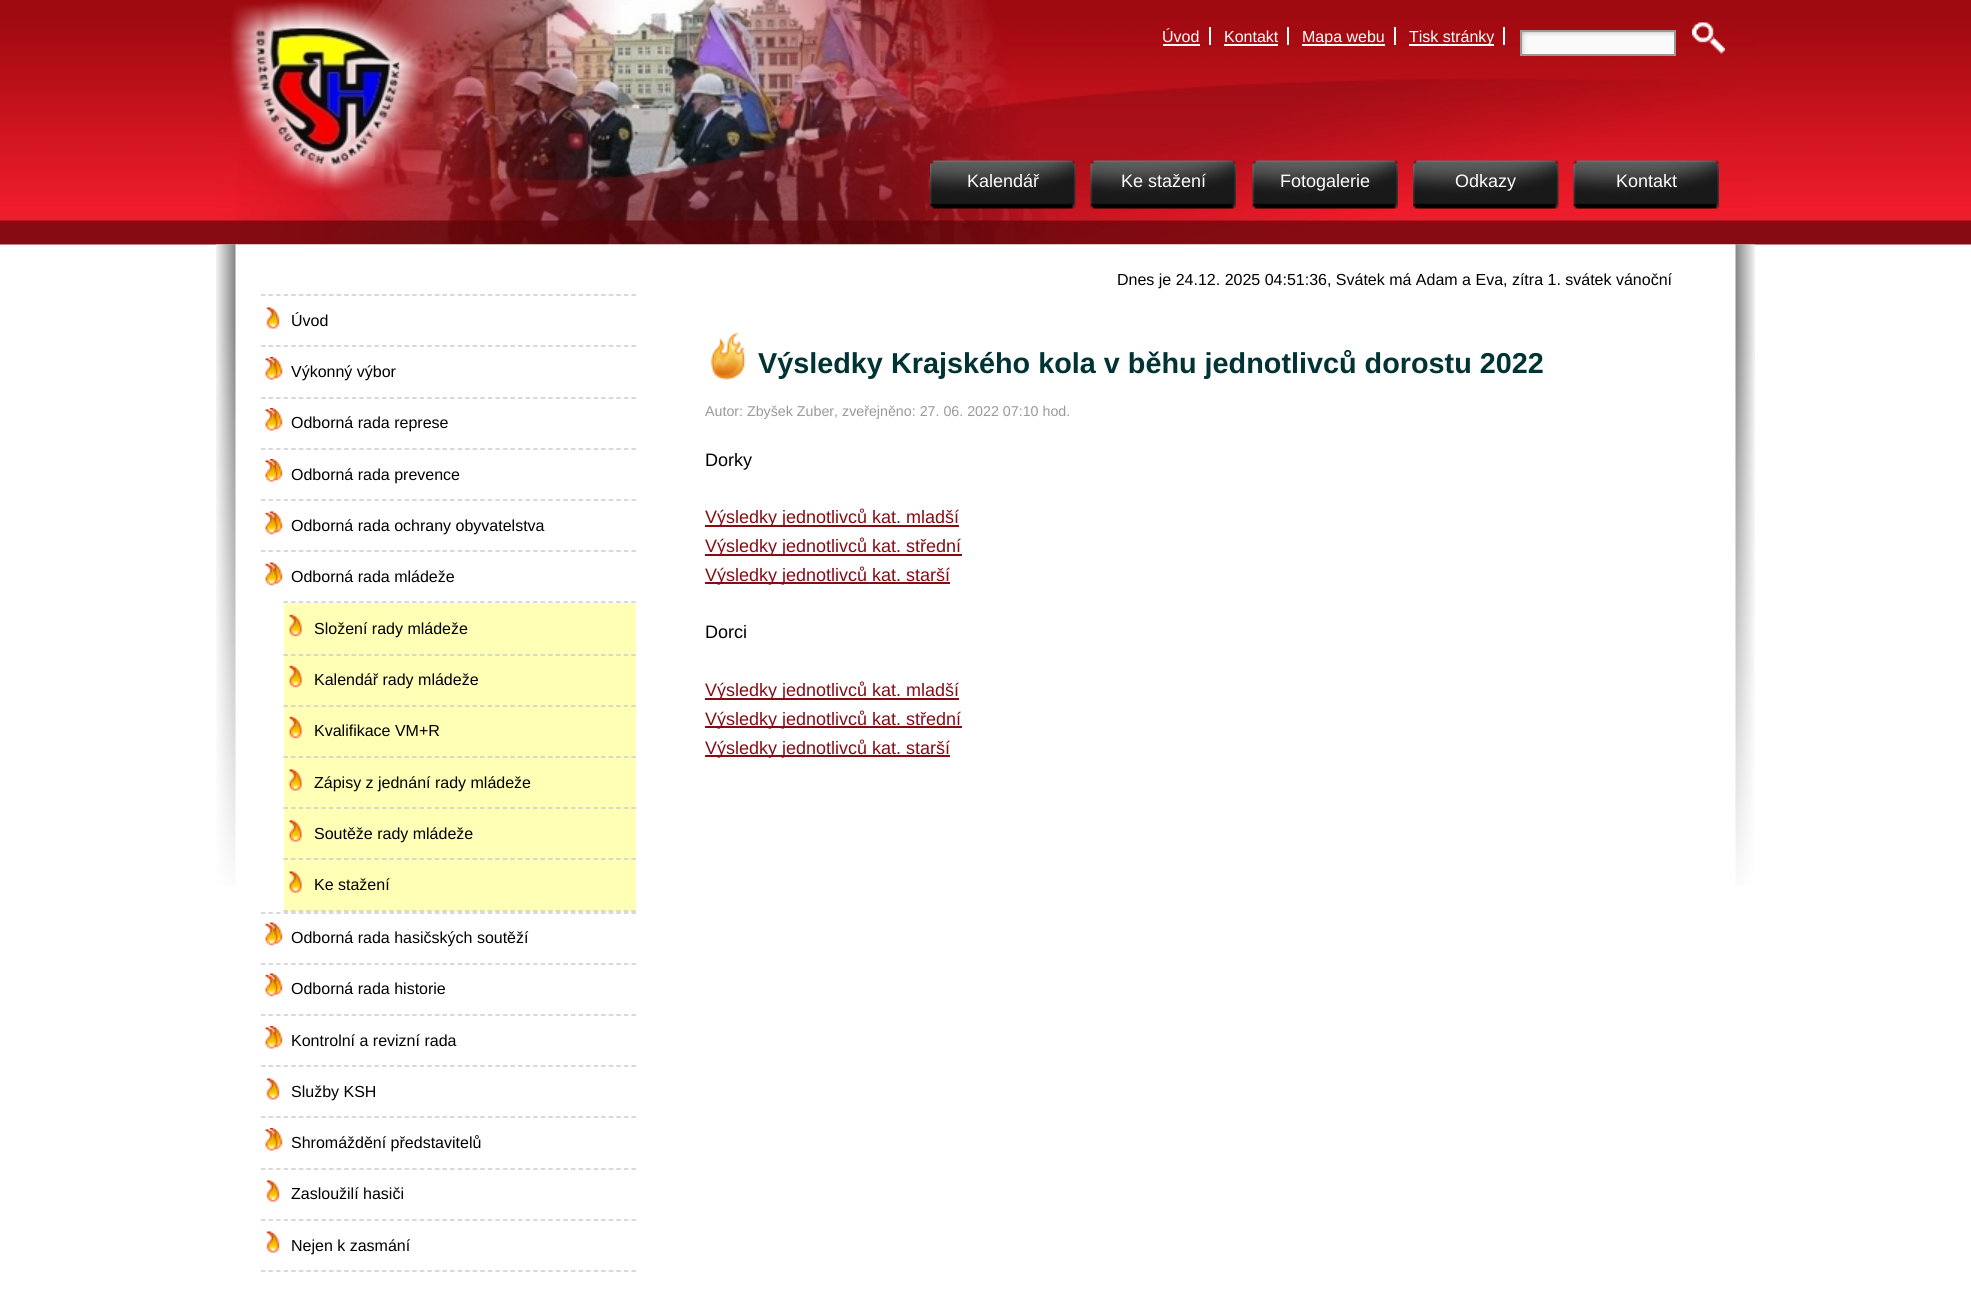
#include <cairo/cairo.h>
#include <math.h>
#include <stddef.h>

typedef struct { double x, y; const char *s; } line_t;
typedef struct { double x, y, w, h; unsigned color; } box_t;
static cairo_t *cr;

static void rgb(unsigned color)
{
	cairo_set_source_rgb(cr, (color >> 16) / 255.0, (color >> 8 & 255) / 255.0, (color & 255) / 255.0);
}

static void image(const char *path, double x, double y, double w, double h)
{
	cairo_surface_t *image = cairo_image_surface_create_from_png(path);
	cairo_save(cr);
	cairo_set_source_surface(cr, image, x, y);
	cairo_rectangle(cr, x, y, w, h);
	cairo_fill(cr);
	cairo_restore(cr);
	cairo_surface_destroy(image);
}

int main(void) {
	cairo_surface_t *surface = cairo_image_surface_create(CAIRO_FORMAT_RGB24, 1971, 1294);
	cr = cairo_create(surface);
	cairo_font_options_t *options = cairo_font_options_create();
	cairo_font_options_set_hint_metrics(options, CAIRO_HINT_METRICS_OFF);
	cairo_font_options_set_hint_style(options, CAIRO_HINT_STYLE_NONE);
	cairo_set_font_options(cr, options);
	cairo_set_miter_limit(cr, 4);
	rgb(0xffffff);
	cairo_paint(cr);
	image("img/1.png", 0, 0, 1971, 245);
	rgb(0xffffff);
	cairo_rectangle(cr, 216, 244, 1539, 1);
	cairo_fill(cr);
	image("img/2.png", 216, 0, 1539, 245);
	image("img/3.png", 230, 0, 204, 191);
	{
		static const box_t items[] = {
			{1209, 27, 2, 18, 0xffffff},
			{1163, 44, 37, 2, 0xffffff},
			{1287, 27, 2, 18, 0xffffff},
			{1224, 44, 54, 2, 0xffffff},
			{1394, 27, 2, 18, 0xffffff},
			{1302, 44, 83, 2, 0xffffff},
			{1503, 27, 2, 18, 0xffffff},
			{1409, 44, 85, 2, 0xffffff},
		};
		for (size_t i = 0; i < sizeof items / sizeof *items; i++) {
			rgb(items[i].color);
			cairo_rectangle(cr, items[i].x, items[i].y, items[i].w, items[i].h);
			cairo_fill(cr);
		}
	}
	image("img/4.png", 1522, 32, 152, 22);
	cairo_rectangle(cr, 1521, 31, 154, 24);
	rgb(0x999999);
	cairo_stroke(cr);
	image("img/5.png", 1692, 22, 33, 32);
	image("img/6.png", 930, 160, 146, 49);
	image("img/7.png", 1090, 160, 146, 49);
	image("img/8.png", 1252, 160, 146, 49);
	image("img/9.png", 1413, 160, 146, 49);
	image("img/10.png", 1573, 160, 146, 49);
	image("img/11.png", 216, 244, 1539, 642);
	cairo_new_path(cr);
	cairo_move_to(cr, 261, 295);
	cairo_line_to(cr, 636, 295);
	rgb(0xcccccc);
	cairo_set_line_width(cr, 1.5);
	cairo_set_dash(cr, (double[]){4.5, 3.06}, 2, 0);
	cairo_stroke(cr);
	cairo_new_path(cr);
	cairo_move_to(cr, 261, 346);
	cairo_line_to(cr, 636, 346);
	cairo_stroke(cr);
	image("img/12.png", 266, 307, 14, 22);
	cairo_new_path(cr);
	cairo_move_to(cr, 261, 398);
	cairo_line_to(cr, 636, 398);
	cairo_stroke(cr);
	image("img/13.png", 265, 357, 18, 23);
	cairo_new_path(cr);
	cairo_move_to(cr, 261, 449);
	cairo_line_to(cr, 636, 449);
	cairo_stroke(cr);
	image("img/13.png", 265, 408, 18, 23);
	cairo_new_path(cr);
	cairo_move_to(cr, 261, 500);
	cairo_line_to(cr, 636, 500);
	cairo_stroke(cr);
	image("img/13.png", 265, 459, 18, 23);
	cairo_new_path(cr);
	cairo_move_to(cr, 261, 551);
	cairo_line_to(cr, 636, 551);
	cairo_stroke(cr);
	image("img/14.png", 265, 511, 18, 24);
	cairo_new_path(cr);
	cairo_move_to(cr, 261, 913);
	cairo_line_to(cr, 636, 913);
	cairo_stroke(cr);
	image("img/14.png", 265, 562, 18, 24);
	cairo_new_path(cr);
	cairo_move_to(cr, 283.5, 602);
	cairo_line_to(cr, 636, 602);
	cairo_stroke(cr);
	rgb(0xffffb5);
	cairo_rectangle(cr, 284, 603, 352, 309);
	cairo_fill(cr);
	cairo_new_path(cr);
	cairo_move_to(cr, 283.5, 655);
	cairo_line_to(cr, 636, 655);
	rgb(0xcccccc);
	cairo_stroke(cr);
	image("img/15.png", 289, 614, 13, 23);
	cairo_new_path(cr);
	cairo_move_to(cr, 283.5, 706);
	cairo_line_to(cr, 636, 706);
	cairo_stroke(cr);
	image("img/15.png", 289, 665, 13, 23);
	cairo_new_path(cr);
	cairo_move_to(cr, 283.5, 757);
	cairo_line_to(cr, 636, 757);
	cairo_stroke(cr);
	image("img/15.png", 289, 716, 13, 23);
	cairo_new_path(cr);
	cairo_move_to(cr, 283.5, 808);
	cairo_line_to(cr, 636, 808);
	cairo_stroke(cr);
	image("img/16.png", 289, 769, 13, 22);
	cairo_new_path(cr);
	cairo_move_to(cr, 283.5, 859);
	cairo_line_to(cr, 636, 859);
	cairo_stroke(cr);
	image("img/16.png", 289, 820, 13, 22);
	cairo_new_path(cr);
	cairo_move_to(cr, 283.5, 911);
	cairo_line_to(cr, 636, 911);
	cairo_stroke(cr);
	image("img/16.png", 289, 871, 13, 22);
	cairo_new_path(cr);
	cairo_move_to(cr, 261, 964);
	cairo_line_to(cr, 636, 964);
	cairo_stroke(cr);
	image("img/14.png", 265, 922, 18, 24);
	cairo_new_path(cr);
	cairo_move_to(cr, 261, 1015);
	cairo_line_to(cr, 636, 1015);
	cairo_stroke(cr);
	image("img/14.png", 265, 973, 18, 24);
	cairo_new_path(cr);
	cairo_move_to(cr, 261, 1066);
	cairo_line_to(cr, 636, 1066);
	cairo_stroke(cr);
	image("img/13.png", 265, 1026, 18, 23);
	cairo_new_path(cr);
	cairo_move_to(cr, 261, 1117);
	cairo_line_to(cr, 636, 1117);
	cairo_stroke(cr);
	image("img/12.png", 266, 1078, 14, 22);
	cairo_new_path(cr);
	cairo_move_to(cr, 261, 1169);
	cairo_line_to(cr, 636, 1169);
	cairo_stroke(cr);
	image("img/13.png", 265, 1128, 18, 23);
	cairo_new_path(cr);
	cairo_move_to(cr, 261, 1220);
	cairo_line_to(cr, 636, 1220);
	cairo_stroke(cr);
	image("img/12.png", 266, 1180, 14, 22);
	cairo_new_path(cr);
	cairo_move_to(cr, 261, 1271);
	cairo_line_to(cr, 636, 1271);
	cairo_stroke(cr);
	image("img/12.png", 266, 1231, 14, 22);
	image("img/17.png", 710, 332, 36, 48);
	{
		static const box_t items[] = {
			{705, 525, 254, 2, 0x870b13},
			{705, 554, 257, 2, 0x870b13},
			{705, 582, 245, 2, 0x870b13},
			{705, 698, 254, 2, 0x870b13},
			{705, 726, 257, 2, 0x870b13},
			{705, 755, 245, 2, 0x870b13},
		};
		for (size_t i = 0; i < sizeof items / sizeof *items; i++) {
			rgb(items[i].color);
			cairo_rectangle(cr, items[i].x, items[i].y, items[i].w, items[i].h);
			cairo_fill(cr);
		}
	}
	cairo_select_font_face(cr, "Liberation Sans", CAIRO_FONT_SLANT_NORMAL, CAIRO_FONT_WEIGHT_NORMAL);
	cairo_set_font_size(cr, 16);
	rgb(0xffffff);
	{
		static const line_t items[] = {
			{1162, 42, "Úvod"},
			{1224, 42, "Kontakt"},
			{1302, 42, "Mapa webu"},
			{1409, 42, "Tisk stránky"},
		};
		for (size_t i = 0; i < sizeof items / sizeof *items; i++) {
			cairo_move_to(cr, items[i].x, items[i].y);
			cairo_show_text(cr, items[i].s);
		}
	}
	cairo_set_font_size(cr, 18);
	{
		static const line_t items[] = {
			{967, 187, "Kalendář"},
			{1121, 187, "Ke stažení"},
			{1280, 187, "Fotogalerie"},
			{1455, 187, "Odkazy"},
			{1616, 187, "Kontakt"},
		};
		for (size_t i = 0; i < sizeof items / sizeof *items; i++) {
			cairo_move_to(cr, items[i].x, items[i].y);
			cairo_show_text(cr, items[i].s);
		}
	}
	cairo_set_font_size(cr, 16);
	rgb(0x000000);
	{
		static const line_t items[] = {
			{1117, 285, "Dnes je 24.12. 2025 04:51:36, Svátek má Adam a Eva, zítra 1. svátek vánoční"},
			{291, 326, "Úvod"},
			{291, 377, "Výkonný výbor"},
			{291, 428, "Odborná rada represe"},
			{291, 480, "Odborná rada prevence"},
			{291, 531, "Odborná rada ochrany obyvatelstva"},
			{291, 582, "Odborná rada mládeže"},
			{314, 634, "Složení rady mládeže"},
			{314, 685, "Kalendář rady mládeže"},
			{314, 736, "Kvalifikace VM+R"},
			{314, 788, "Zápisy z jednání rady mládeže"},
			{314, 839, "Soutěže rady mládeže"},
			{314, 890, "Ke stažení"},
			{291, 943, "Odborná rada hasičských soutěží"},
			{291, 994, "Odborná rada historie"},
			{291, 1046, "Kontrolní a revizní rada"},
			{291, 1097, "Služby KSH"},
			{291, 1148, "Shromáždění představitelů"},
			{291, 1199, "Zasloužilí hasiči"},
			{291, 1251, "Nejen k zasmání"},
		};
		for (size_t i = 0; i < sizeof items / sizeof *items; i++) {
			cairo_move_to(cr, items[i].x, items[i].y);
			cairo_show_text(cr, items[i].s);
		}
	}
	cairo_select_font_face(cr, "Liberation Sans", CAIRO_FONT_SLANT_NORMAL, CAIRO_FONT_WEIGHT_BOLD);
	cairo_set_font_size(cr, 28.8);
	rgb(0x003334);
	cairo_move_to(cr, 758, 373);
	cairo_show_text(cr, "Výsledky Krajského kola v běhu jednotlivců dorostu 2022");
	cairo_select_font_face(cr, "Liberation Sans", CAIRO_FONT_SLANT_NORMAL, CAIRO_FONT_WEIGHT_NORMAL);
	cairo_set_font_size(cr, 14.25);
	rgb(0x999999);
	cairo_move_to(cr, 705, 416);
	cairo_show_text(cr, "Autor: Zbyšek Zuber, zveřejněno: 27. 06. 2022 07:10 hod.");
	cairo_set_font_size(cr, 18);
	rgb(0x000000);
	cairo_move_to(cr, 705, 466);
	cairo_show_text(cr, "Dorky");
	rgb(0x870b13);
	{
		static const line_t items[] = {
			{705, 523, "Výsledky jednotlivců kat. mladší"},
			{705, 552, "Výsledky jednotlivců kat. střední"},
			{705, 581, "Výsledky jednotlivců kat. starší"},
		};
		for (size_t i = 0; i < sizeof items / sizeof *items; i++) {
			cairo_move_to(cr, items[i].x, items[i].y);
			cairo_show_text(cr, items[i].s);
		}
	}
	rgb(0x000000);
	cairo_move_to(cr, 705, 638);
	cairo_show_text(cr, "Dorci");
	rgb(0x870b13);
	{
		static const line_t items[] = {
			{705, 696, "Výsledky jednotlivců kat. mladší"},
			{705, 725, "Výsledky jednotlivců kat. střední"},
			{705, 754, "Výsledky jednotlivců kat. starší"},
		};
		for (size_t i = 0; i < sizeof items / sizeof *items; i++) {
			cairo_move_to(cr, items[i].x, items[i].y);
			cairo_show_text(cr, items[i].s);
		}
	}
	cairo_surface_write_to_png(surface, "page.png");
	cairo_font_options_destroy(options);
	cairo_destroy(cr);
	cairo_surface_destroy(surface);
	return 0;
}
